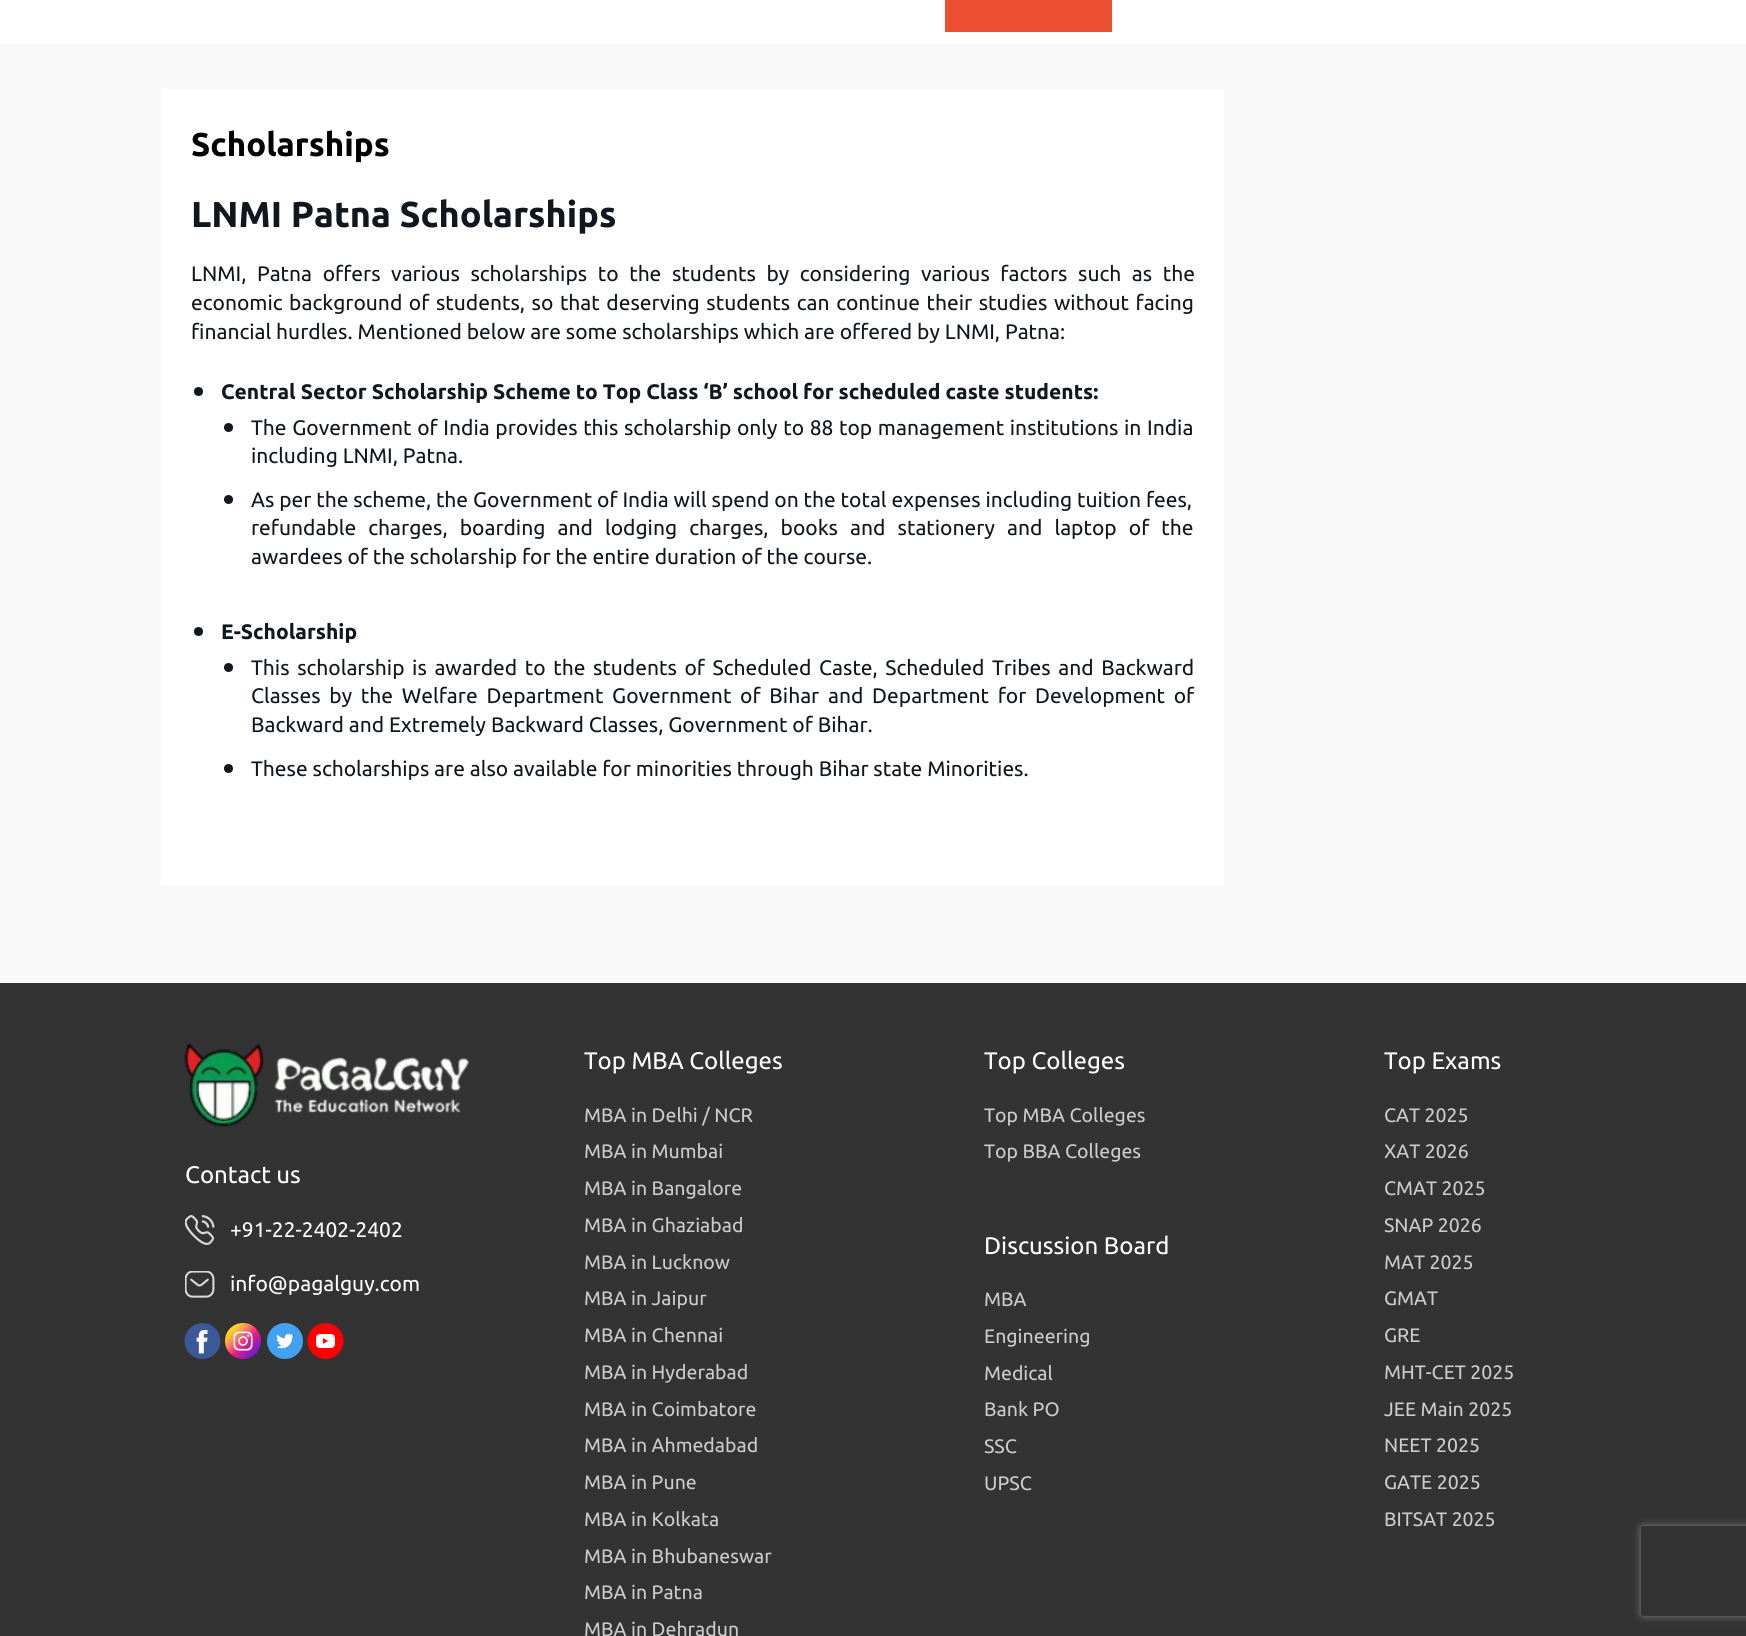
#include <cairo/cairo.h>
#include <math.h>
#include <stddef.h>

typedef struct { double x, y; const char *s; } line_t;
typedef struct { double x, y, w, h; unsigned color; } box_t;
static cairo_t *cr;

static void rgb(unsigned color)
{
	cairo_set_source_rgb(cr, (color >> 16) / 255.0, (color >> 8 & 255) / 255.0, (color & 255) / 255.0);
}

static void tracked(double x, double y, const char *s, double letter, double word)
{
	cairo_move_to(cr, x, y);
	while (*s) {
		char ch[5] = {0};
		int n = 0;
		do ch[n++] = *s++; while ((*s & 0xC0) == 0x80);
		cairo_show_text(cr, ch);
		cairo_rel_move_to(cr, letter + word * (*ch == ' '), 0);
	}
}

static void rrect(double x, double y, double w, double h, double r)
{
	cairo_new_sub_path(cr);
	cairo_arc(cr, x + w - r, y + h - r, r, 0, M_PI / 2);
	cairo_arc(cr, x + r, y + h - r, r, M_PI / 2, M_PI);
	cairo_arc(cr, x + r, y + r, r, M_PI, 1.5 * M_PI);
	cairo_arc(cr, x + w - r, y + r, r, 1.5 * M_PI, 2 * M_PI);
	cairo_close_path(cr);
}

static void soft_shadow(double x, double y, double w, double h, double r, double blur, double alpha)
{
	cairo_push_group_with_content(cr, CAIRO_CONTENT_ALPHA);
	cairo_set_operator(cr, CAIRO_OPERATOR_SOURCE);
	for (int i = 15; i >= -15 && fmin(w, h) + blur * i / 3 > 0; i -= 2) {
		double e = blur * i / 6;
		cairo_set_source_rgba(cr, 0, 0, 0, alpha * erfc((i - 1) / 8.5) / 2);
		rrect(x - e, y - e, w + 2 * e, h + 2 * e, fmax(0, fmin(r + e + blur * .6, fmin(w, h) / 2 + e)));
		cairo_fill(cr);
	}
	cairo_pattern_t *soft = cairo_pop_group(cr);
	cairo_mask(cr, soft);
	cairo_pattern_destroy(soft);
}

static void image(const char *path, double x, double y, double w, double h)
{
	cairo_surface_t *image = cairo_image_surface_create_from_png(path);
	cairo_save(cr);
	cairo_set_source_surface(cr, image, x, y);
	cairo_rectangle(cr, x, y, w, h);
	cairo_fill(cr);
	cairo_restore(cr);
	cairo_surface_destroy(image);
}

int main(void) {
	cairo_surface_t *surface = cairo_image_surface_create(CAIRO_FORMAT_RGB24, 1746, 1636);
	cr = cairo_create(surface);
	cairo_font_options_t *options = cairo_font_options_create();
	cairo_font_options_set_hint_metrics(options, CAIRO_HINT_METRICS_OFF);
	cairo_font_options_set_hint_style(options, CAIRO_HINT_STYLE_NONE);
	cairo_set_font_options(cr, options);
	cairo_set_miter_limit(cr, 4);
	rgb(0xf9f9f9);
	cairo_paint(cr);
	{
		static const box_t items[] = {
			{0, 0, 1746, 44, 0xffffff},
			{945, 0, 167, 32, 0xec4e32},
			{161, 89, 1063, 796, 0xffffff},
		};
		for (size_t i = 0; i < sizeof items / sizeof *items; i++) {
			rgb(items[i].color);
			cairo_rectangle(cr, items[i].x, items[i].y, items[i].w, items[i].h);
			cairo_fill(cr);
		}
	}
	rgb(0x11171f);
	cairo_arc(cr, 198.5, 391.5, 4.5, 0, 2 * M_PI);
	cairo_fill(cr);
	cairo_arc(cr, 228.5, 427.5, 4.5, 0, 2 * M_PI);
	cairo_fill(cr);
	cairo_arc(cr, 228.5, 499.5, 4.5, 0, 2 * M_PI);
	cairo_fill(cr);
	cairo_arc(cr, 198.5, 631.5, 4.5, 0, 2 * M_PI);
	cairo_fill(cr);
	cairo_arc(cr, 228.5, 667.5, 4.5, 0, 2 * M_PI);
	cairo_fill(cr);
	cairo_arc(cr, 228.5, 768.5, 4.5, 0, 2 * M_PI);
	cairo_fill(cr);
	rgb(0x333333);
	cairo_rectangle(cr, 0, 983, 1746, 653);
	cairo_fill(cr);
	image("img/1.png", 184, 1043, 286, 84);
	image("img/2.png", 185, 1215, 30, 30);
	image("img/3.png", 185, 1271, 30, 27);
	image("img/4.png", 184, 1323, 37, 36);
	image("img/5.png", 225, 1323, 36, 36);
	image("img/6.png", 267, 1323, 36, 36);
	image("img/7.png", 307, 1323, 37, 36);
	cairo_save(cr);
	cairo_set_fill_rule(cr, CAIRO_FILL_RULE_EVEN_ODD);
	cairo_new_path(cr);
	cairo_move_to(cr, 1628, 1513);
	cairo_line_to(cr, 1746, 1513);
	cairo_line_to(cr, 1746, 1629);
	cairo_line_to(cr, 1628, 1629);
	cairo_close_path(cr);
	cairo_move_to(cr, 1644, 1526);
	cairo_line_to(cr, 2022, 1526);
	cairo_curve_to(cr, 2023.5, 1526, 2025, 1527.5, 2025, 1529);
	cairo_line_to(cr, 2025, 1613);
	cairo_curve_to(cr, 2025, 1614.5, 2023.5, 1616, 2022, 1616);
	cairo_line_to(cr, 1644, 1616);
	cairo_curve_to(cr, 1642.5, 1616, 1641, 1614.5, 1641, 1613);
	cairo_line_to(cr, 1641, 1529);
	cairo_curve_to(cr, 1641, 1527.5, 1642.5, 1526, 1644, 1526);
	cairo_close_path(cr);
	cairo_clip(cr);
	rgb(0x808080);
	soft_shadow(1641, 1526, 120, 90, 3, 4, 1);
	cairo_restore(cr);
	cairo_select_font_face(cr, "Ubuntu", CAIRO_FONT_SLANT_NORMAL, CAIRO_FONT_WEIGHT_BOLD);
	cairo_set_font_size(cr, 33);
	rgb(0x000000);
	cairo_move_to(cr, 191, 156);
	cairo_show_text(cr, "Scholarships");
	cairo_set_font_size(cr, 36);
	rgb(0x11171f);
	cairo_move_to(cr, 191, 227);
	cairo_show_text(cr, "LNMI Patna Scholarships");
	cairo_select_font_face(cr, "Ubuntu", CAIRO_FONT_SLANT_NORMAL, CAIRO_FONT_WEIGHT_NORMAL);
	cairo_set_font_size(cr, 21);
	tracked(191, 281, "LNMI, Patna offers various scholarships to the students by considering various factors such as the", 0, 5.75);
	tracked(191, 310, "economic background of students, so that deserving students can continue their studies without facing", 0, 1.75);
	cairo_move_to(cr, 191, 339);
	cairo_show_text(cr, "financial hurdles. Mentioned below are some scholarships which are offered by LNMI, Patna:");
	cairo_select_font_face(cr, "Ubuntu", CAIRO_FONT_SLANT_NORMAL, CAIRO_FONT_WEIGHT_BOLD);
	cairo_move_to(cr, 221, 399);
	cairo_show_text(cr, "Central Sector Scholarship Scheme to Top Class ‘B’ school for scheduled caste students:");
	cairo_select_font_face(cr, "Ubuntu", CAIRO_FONT_SLANT_NORMAL, CAIRO_FONT_WEIGHT_NORMAL);
	tracked(251, 435, "The Government of India provides this scholarship only to 88 top management institutions in India", 0, 0.8);
	cairo_move_to(cr, 251, 463);
	cairo_show_text(cr, "including LNMI, Patna.");
	cairo_move_to(cr, 251, 507);
	cairo_show_text(cr, "As per the scheme, the Government of India will spend on the total expenses including tuition fees,");
	tracked(251, 535, "refundable charges, boarding and lodging charges, books and stationery and laptop of the", 0, 7.25);
	cairo_move_to(cr, 251, 564);
	cairo_show_text(cr, "awardees of the scholarship for the entire duration of the course.");
	cairo_select_font_face(cr, "Ubuntu", CAIRO_FONT_SLANT_NORMAL, CAIRO_FONT_WEIGHT_BOLD);
	cairo_move_to(cr, 221, 639);
	cairo_show_text(cr, "E-Scholarship");
	cairo_select_font_face(cr, "Ubuntu", CAIRO_FONT_SLANT_NORMAL, CAIRO_FONT_WEIGHT_NORMAL);
	tracked(251, 675, "This scholarship is awarded to the students of Scheduled Caste, Scheduled Tribes and Backward", 0, 2.75);
	tracked(251, 703, "Classes by the Welfare Department Government of Bihar and Department for Development of", 0, 3.9);
	cairo_move_to(cr, 251, 732);
	cairo_show_text(cr, "Backward and Extremely Backward Classes, Government of Bihar.");
	cairo_move_to(cr, 251, 776);
	cairo_show_text(cr, "These scholarships are also available for minorities through Bihar state Minorities.");
	cairo_set_font_size(cr, 24);
	rgb(0xffffff);
	cairo_move_to(cr, 185, 1183);
	cairo_show_text(cr, "Contact us");
	cairo_set_font_size(cr, 21);
	cairo_move_to(cr, 230, 1237);
	cairo_show_text(cr, "+91-22-2402-2402");
	cairo_move_to(cr, 230, 1291);
	cairo_show_text(cr, "info@pagalguy.com");
	cairo_set_font_size(cr, 24);
	cairo_move_to(cr, 584, 1069);
	cairo_show_text(cr, "Top MBA Colleges");
	cairo_set_font_size(cr, 19.5);
	rgb(0xcccccc);
	{
		static const line_t items[] = {
			{584, 1122, "MBA in Delhi / NCR"},
			{584, 1158, "MBA in Mumbai"},
			{584, 1195, "MBA in Bangalore"},
			{584, 1232, "MBA in Ghaziabad"},
			{584, 1269, "MBA in Lucknow"},
			{584, 1305, "MBA in Jaipur"},
			{584, 1342, "MBA in Chennai"},
			{584, 1379, "MBA in Hyderabad"},
			{584, 1416, "MBA in Coimbatore"},
			{584, 1452, "MBA in Ahmedabad"},
			{584, 1489, "MBA in Pune"},
			{584, 1526, "MBA in Kolkata"},
			{584, 1563, "MBA in Bhubaneswar"},
			{584, 1599, "MBA in Patna"},
			{584, 1636, "MBA in Dehradun"},
		};
		for (size_t i = 0; i < sizeof items / sizeof *items; i++) {
			cairo_move_to(cr, items[i].x, items[i].y);
			cairo_show_text(cr, items[i].s);
		}
	}
	cairo_set_font_size(cr, 24);
	rgb(0xffffff);
	cairo_move_to(cr, 984, 1069);
	cairo_show_text(cr, "Top Colleges");
	cairo_set_font_size(cr, 19.5);
	rgb(0xcccccc);
	cairo_move_to(cr, 984, 1122);
	cairo_show_text(cr, "Top MBA Colleges");
	cairo_move_to(cr, 984, 1158);
	cairo_show_text(cr, "Top BBA Colleges");
	cairo_set_font_size(cr, 24);
	rgb(0xffffff);
	cairo_move_to(cr, 984, 1254);
	cairo_show_text(cr, "Discussion Board");
	cairo_set_font_size(cr, 19.5);
	rgb(0xcccccc);
	{
		static const line_t items[] = {
			{984, 1306, "MBA"},
			{984, 1343, "Engineering"},
			{984, 1380, "Medical"},
			{984, 1416, "Bank PO"},
			{984, 1453, "SSC"},
			{984, 1490, "UPSC"},
		};
		for (size_t i = 0; i < sizeof items / sizeof *items; i++) {
			cairo_move_to(cr, items[i].x, items[i].y);
			cairo_show_text(cr, items[i].s);
		}
	}
	cairo_set_font_size(cr, 24);
	rgb(0xffffff);
	cairo_move_to(cr, 1384, 1069);
	cairo_show_text(cr, "Top Exams");
	cairo_set_font_size(cr, 19.5);
	rgb(0xcccccc);
	{
		static const line_t items[] = {
			{1384, 1122, "CAT 2025"},
			{1384, 1158, "XAT 2026"},
			{1384, 1195, "CMAT 2025"},
			{1384, 1232, "SNAP 2026"},
			{1384, 1269, "MAT 2025"},
			{1384, 1305, "GMAT"},
			{1384, 1342, "GRE"},
			{1384, 1379, "MHT-CET 2025"},
			{1384, 1416, "JEE Main 2025"},
			{1384, 1452, "NEET 2025"},
			{1384, 1489, "GATE 2025"},
			{1384, 1526, "BITSAT 2025"},
		};
		for (size_t i = 0; i < sizeof items / sizeof *items; i++) {
			cairo_move_to(cr, items[i].x, items[i].y);
			cairo_show_text(cr, items[i].s);
		}
	}
	cairo_surface_write_to_png(surface, "page.png");
	cairo_font_options_destroy(options);
	cairo_destroy(cr);
	cairo_surface_destroy(surface);
	return 0;
}
